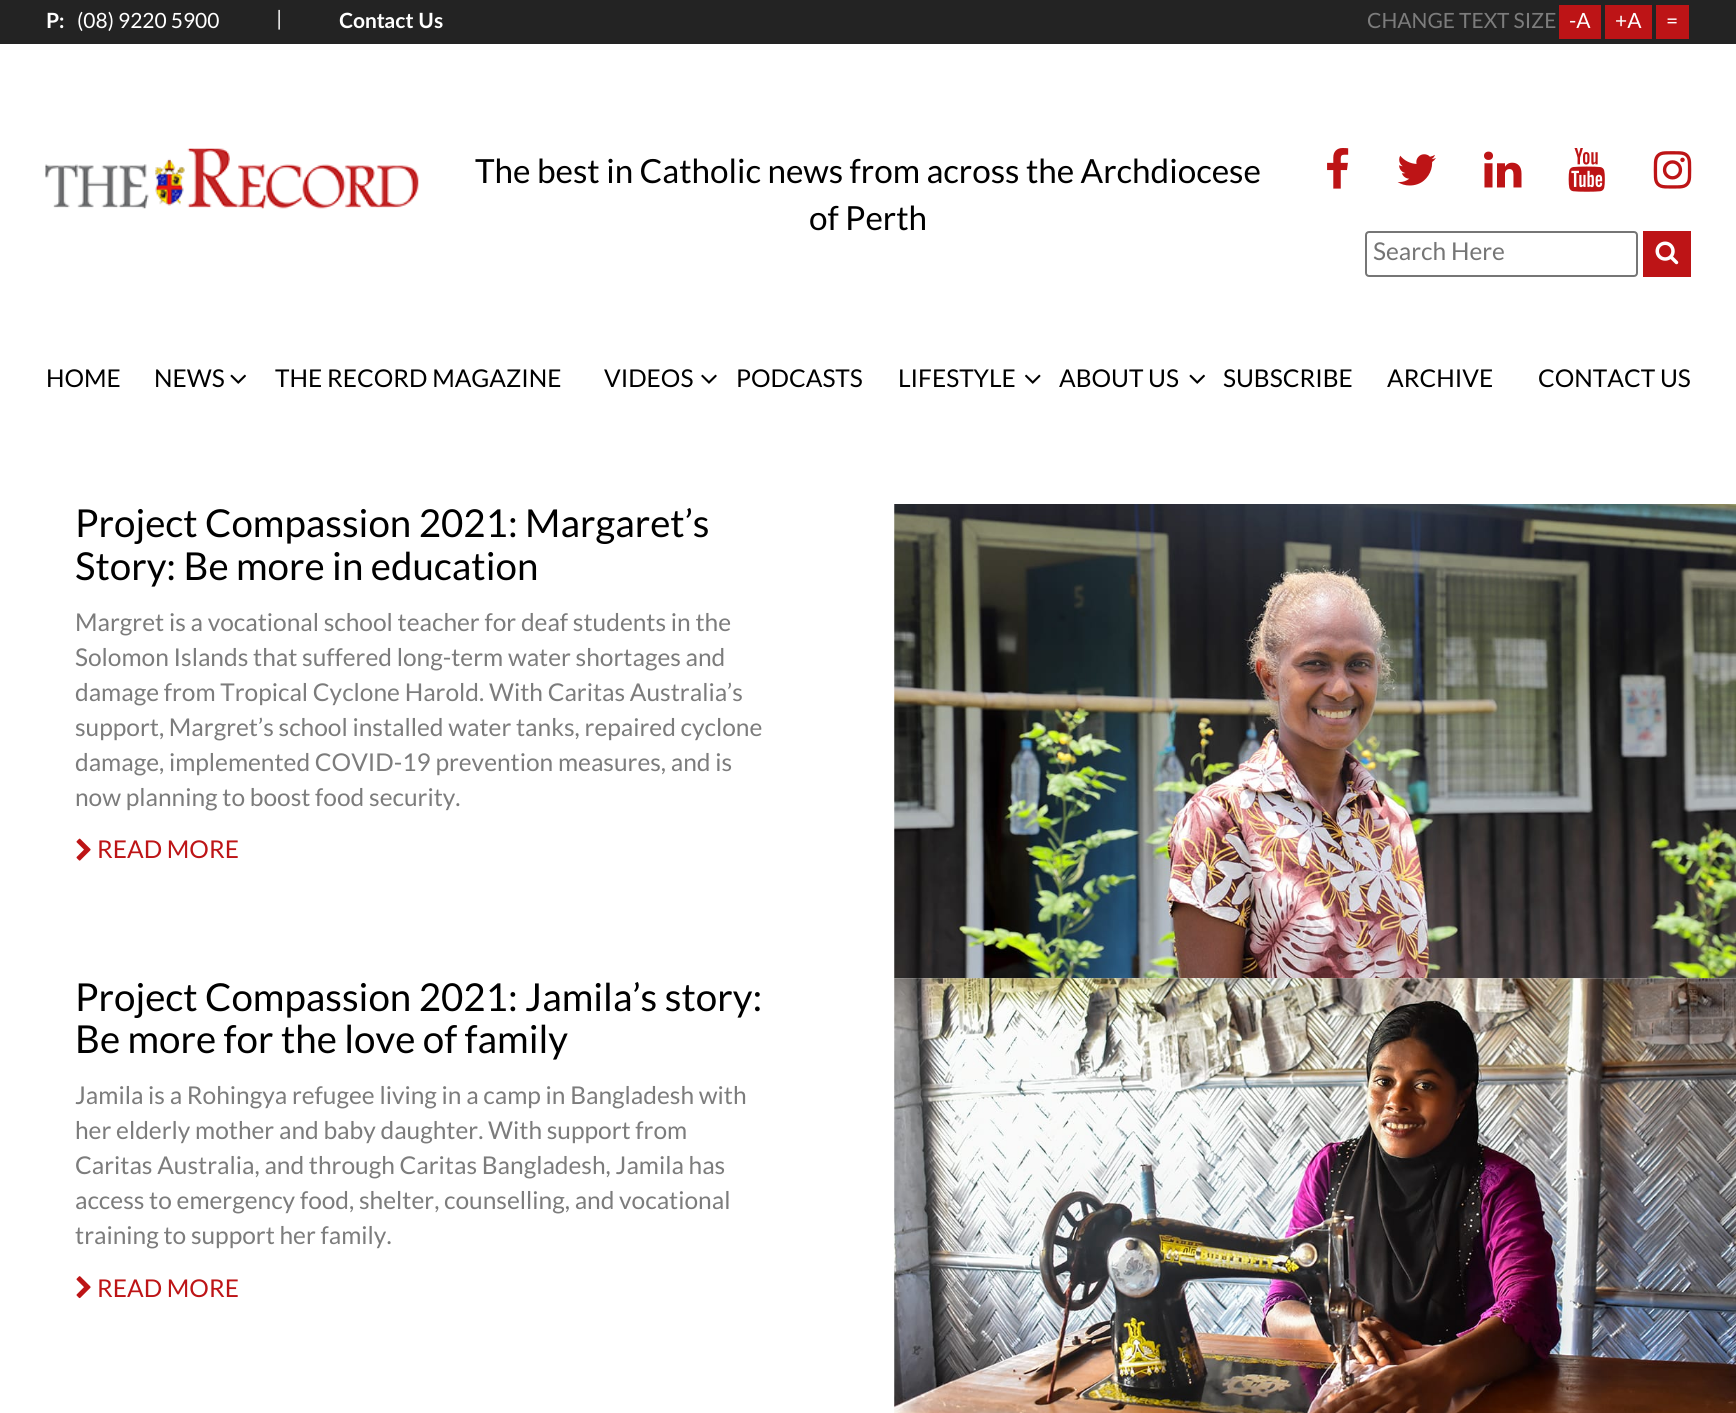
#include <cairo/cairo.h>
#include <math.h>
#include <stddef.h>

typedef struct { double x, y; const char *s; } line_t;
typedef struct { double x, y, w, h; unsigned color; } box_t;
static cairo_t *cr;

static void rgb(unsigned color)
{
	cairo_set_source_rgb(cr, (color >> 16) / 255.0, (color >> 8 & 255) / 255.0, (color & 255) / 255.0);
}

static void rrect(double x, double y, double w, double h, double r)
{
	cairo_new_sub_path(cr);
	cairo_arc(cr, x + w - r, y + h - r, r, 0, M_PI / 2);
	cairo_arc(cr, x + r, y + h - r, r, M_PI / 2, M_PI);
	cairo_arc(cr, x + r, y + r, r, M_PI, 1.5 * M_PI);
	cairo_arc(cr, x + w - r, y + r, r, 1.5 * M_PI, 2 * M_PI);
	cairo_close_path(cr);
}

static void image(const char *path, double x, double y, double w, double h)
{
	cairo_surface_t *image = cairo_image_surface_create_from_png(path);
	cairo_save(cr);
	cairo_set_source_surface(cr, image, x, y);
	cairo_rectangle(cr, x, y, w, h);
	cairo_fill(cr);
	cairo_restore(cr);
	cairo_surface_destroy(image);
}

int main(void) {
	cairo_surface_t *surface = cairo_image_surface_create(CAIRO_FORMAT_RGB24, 1736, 1413);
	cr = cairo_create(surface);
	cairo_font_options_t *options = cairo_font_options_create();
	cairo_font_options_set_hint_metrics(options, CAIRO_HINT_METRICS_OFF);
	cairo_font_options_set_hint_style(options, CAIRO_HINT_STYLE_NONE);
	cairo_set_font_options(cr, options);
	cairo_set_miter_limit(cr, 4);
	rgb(0xffffff);
	cairo_paint(cr);
	{
		static const box_t items[] = {
			{0, 0, 1736, 44, 0x232323},
			{1559, 5, 42, 34, 0xbd1416},
			{1605, 5, 47, 34, 0xbd1416},
			{1656, 5, 33, 34, 0xbd1416},
		};
		for (size_t i = 0; i < sizeof items / sizeof *items; i++) {
			rgb(items[i].color);
			cairo_rectangle(cr, items[i].x, items[i].y, items[i].w, items[i].h);
			cairo_fill(cr);
		}
	}
	image("img/1.png", 45, 148, 374, 61);
	image("img/2.png", 1327, 148, 22, 41);
	image("img/3.png", 1397, 154, 39, 32);
	image("img/4.png", 1484, 151, 38, 37);
	image("img/5.png", 1568, 148, 37, 44);
	image("img/6.png", 1653, 151, 39, 38);
	rrect(1366, 232, 271, 44, 3);
	rgb(0x767676);
	cairo_stroke(cr);
	rgb(0xbd1416);
	cairo_rectangle(cr, 1643, 231, 48, 46);
	cairo_fill(cr);
	image("img/7.png", 1655, 241, 24, 24);
	image("img/8.png", 230, 374, 16, 10);
	image("img/9.png", 701, 374, 16, 10);
	image("img/10.png", 1025, 374, 16, 10);
	image("img/8.png", 1189, 374, 16, 10);
	image("img/11.png", 76, 838, 15, 23);
	image("img/12.png", 894, 504, 842, 475);
	image("img/13.png", 76, 1276, 15, 23);
	image("img/14.png", 894, 978, 842, 435);
	cairo_select_font_face(cr, "Lato", CAIRO_FONT_SLANT_NORMAL, CAIRO_FONT_WEIGHT_BOLD);
	cairo_set_font_size(cr, 21);
	rgb(0xffffff);
	cairo_move_to(cr, 46, 28);
	cairo_show_text(cr, "P:");
	cairo_select_font_face(cr, "Lato", CAIRO_FONT_SLANT_NORMAL, CAIRO_FONT_WEIGHT_NORMAL);
	cairo_move_to(cr, 77, 28);
	cairo_show_text(cr, "(08) 9220 5900");
	cairo_move_to(cr, 276, 26);
	cairo_show_text(cr, "|");
	cairo_select_font_face(cr, "Lato", CAIRO_FONT_SLANT_NORMAL, CAIRO_FONT_WEIGHT_BOLD);
	cairo_move_to(cr, 339, 28);
	cairo_show_text(cr, "Contact Us");
	cairo_select_font_face(cr, "Lato", CAIRO_FONT_SLANT_NORMAL, CAIRO_FONT_WEIGHT_NORMAL);
	rgb(0x7c7c7c);
	cairo_move_to(cr, 1367, 28);
	cairo_show_text(cr, "CHANGE TEXT SIZE");
	rgb(0xffffff);
	{
		static const line_t items[] = {
			{1569, 28, "-A"},
			{1615, 28, "+A"},
			{1666, 28, "="},
		};
		for (size_t i = 0; i < sizeof items / sizeof *items; i++) {
			cairo_move_to(cr, items[i].x, items[i].y);
			cairo_show_text(cr, items[i].s);
		}
	}
	cairo_set_font_size(cr, 33.25);
	rgb(0x000000);
	cairo_move_to(cr, 475, 183);
	cairo_show_text(cr, "The best in Catholic news from across the Archdiocese");
	cairo_move_to(cr, 809, 230);
	cairo_show_text(cr, "of Perth");
	cairo_set_font_size(cr, 24.5);
	rgb(0x757575);
	cairo_move_to(cr, 1373, 260);
	cairo_show_text(cr, "Search Here");
	rgb(0x000000);
	{
		static const line_t items[] = {
			{46, 387, "HOME"},
			{154, 387, "NEWS"},
			{275, 387, "THE RECORD MAGAZINE"},
			{604, 387, "VIDEOS"},
			{736, 387, "PODCASTS"},
			{898, 387, "LIFESTYLE"},
			{1059, 387, "ABOUT US"},
			{1223, 387, "SUBSCRIBE"},
			{1387, 387, "ARCHIVE"},
			{1538, 387, "CONTACT US"},
		};
		for (size_t i = 0; i < sizeof items / sizeof *items; i++) {
			cairo_move_to(cr, items[i].x, items[i].y);
			cairo_show_text(cr, items[i].s);
		}
	}
	cairo_set_font_size(cr, 38.5);
	cairo_move_to(cr, 75, 537);
	cairo_show_text(cr, "Project Compassion 2021: Margaret’s");
	cairo_move_to(cr, 75, 580);
	cairo_show_text(cr, "Story: Be more in education");
	cairo_set_font_size(cr, 24.5);
	rgb(0x7c7c7c);
	{
		static const line_t items[] = {
			{75, 631, "Margret is a vocational school teacher for deaf students in the"},
			{75, 666, "Solomon Islands that suffered long-term water shortages and"},
			{75, 701, "damage from Tropical Cyclone Harold. With Caritas Australia’s"},
			{75, 736, "support, Margret’s school installed water tanks, repaired cyclone"},
			{75, 771, "damage, implemented COVID-19 prevention measures, and is"},
			{75, 806, "now planning to boost food security."},
		};
		for (size_t i = 0; i < sizeof items / sizeof *items; i++) {
			cairo_move_to(cr, items[i].x, items[i].y);
			cairo_show_text(cr, items[i].s);
		}
	}
	rgb(0xbd1416);
	cairo_move_to(cr, 97, 858);
	cairo_show_text(cr, "READ MORE");
	cairo_set_font_size(cr, 38.5);
	rgb(0x000000);
	cairo_move_to(cr, 75, 1011);
	cairo_show_text(cr, "Project Compassion 2021: Jamila’s story:");
	cairo_move_to(cr, 75, 1053);
	cairo_show_text(cr, "Be more for the love of family");
	cairo_set_font_size(cr, 24.5);
	rgb(0x7c7c7c);
	{
		static const line_t items[] = {
			{75, 1104, "Jamila is a Rohingya refugee living in a camp in Bangladesh with"},
			{75, 1139, "her elderly mother and baby daughter. With support from"},
			{75, 1174, "Caritas Australia, and through Caritas Bangladesh, Jamila has"},
			{75, 1209, "access to emergency food, shelter, counselling, and vocational"},
			{75, 1244, "training to support her family."},
		};
		for (size_t i = 0; i < sizeof items / sizeof *items; i++) {
			cairo_move_to(cr, items[i].x, items[i].y);
			cairo_show_text(cr, items[i].s);
		}
	}
	rgb(0xbd1416);
	cairo_move_to(cr, 97, 1297);
	cairo_show_text(cr, "READ MORE");
	cairo_surface_write_to_png(surface, "page.png");
	cairo_font_options_destroy(options);
	cairo_destroy(cr);
	cairo_surface_destroy(surface);
	return 0;
}
